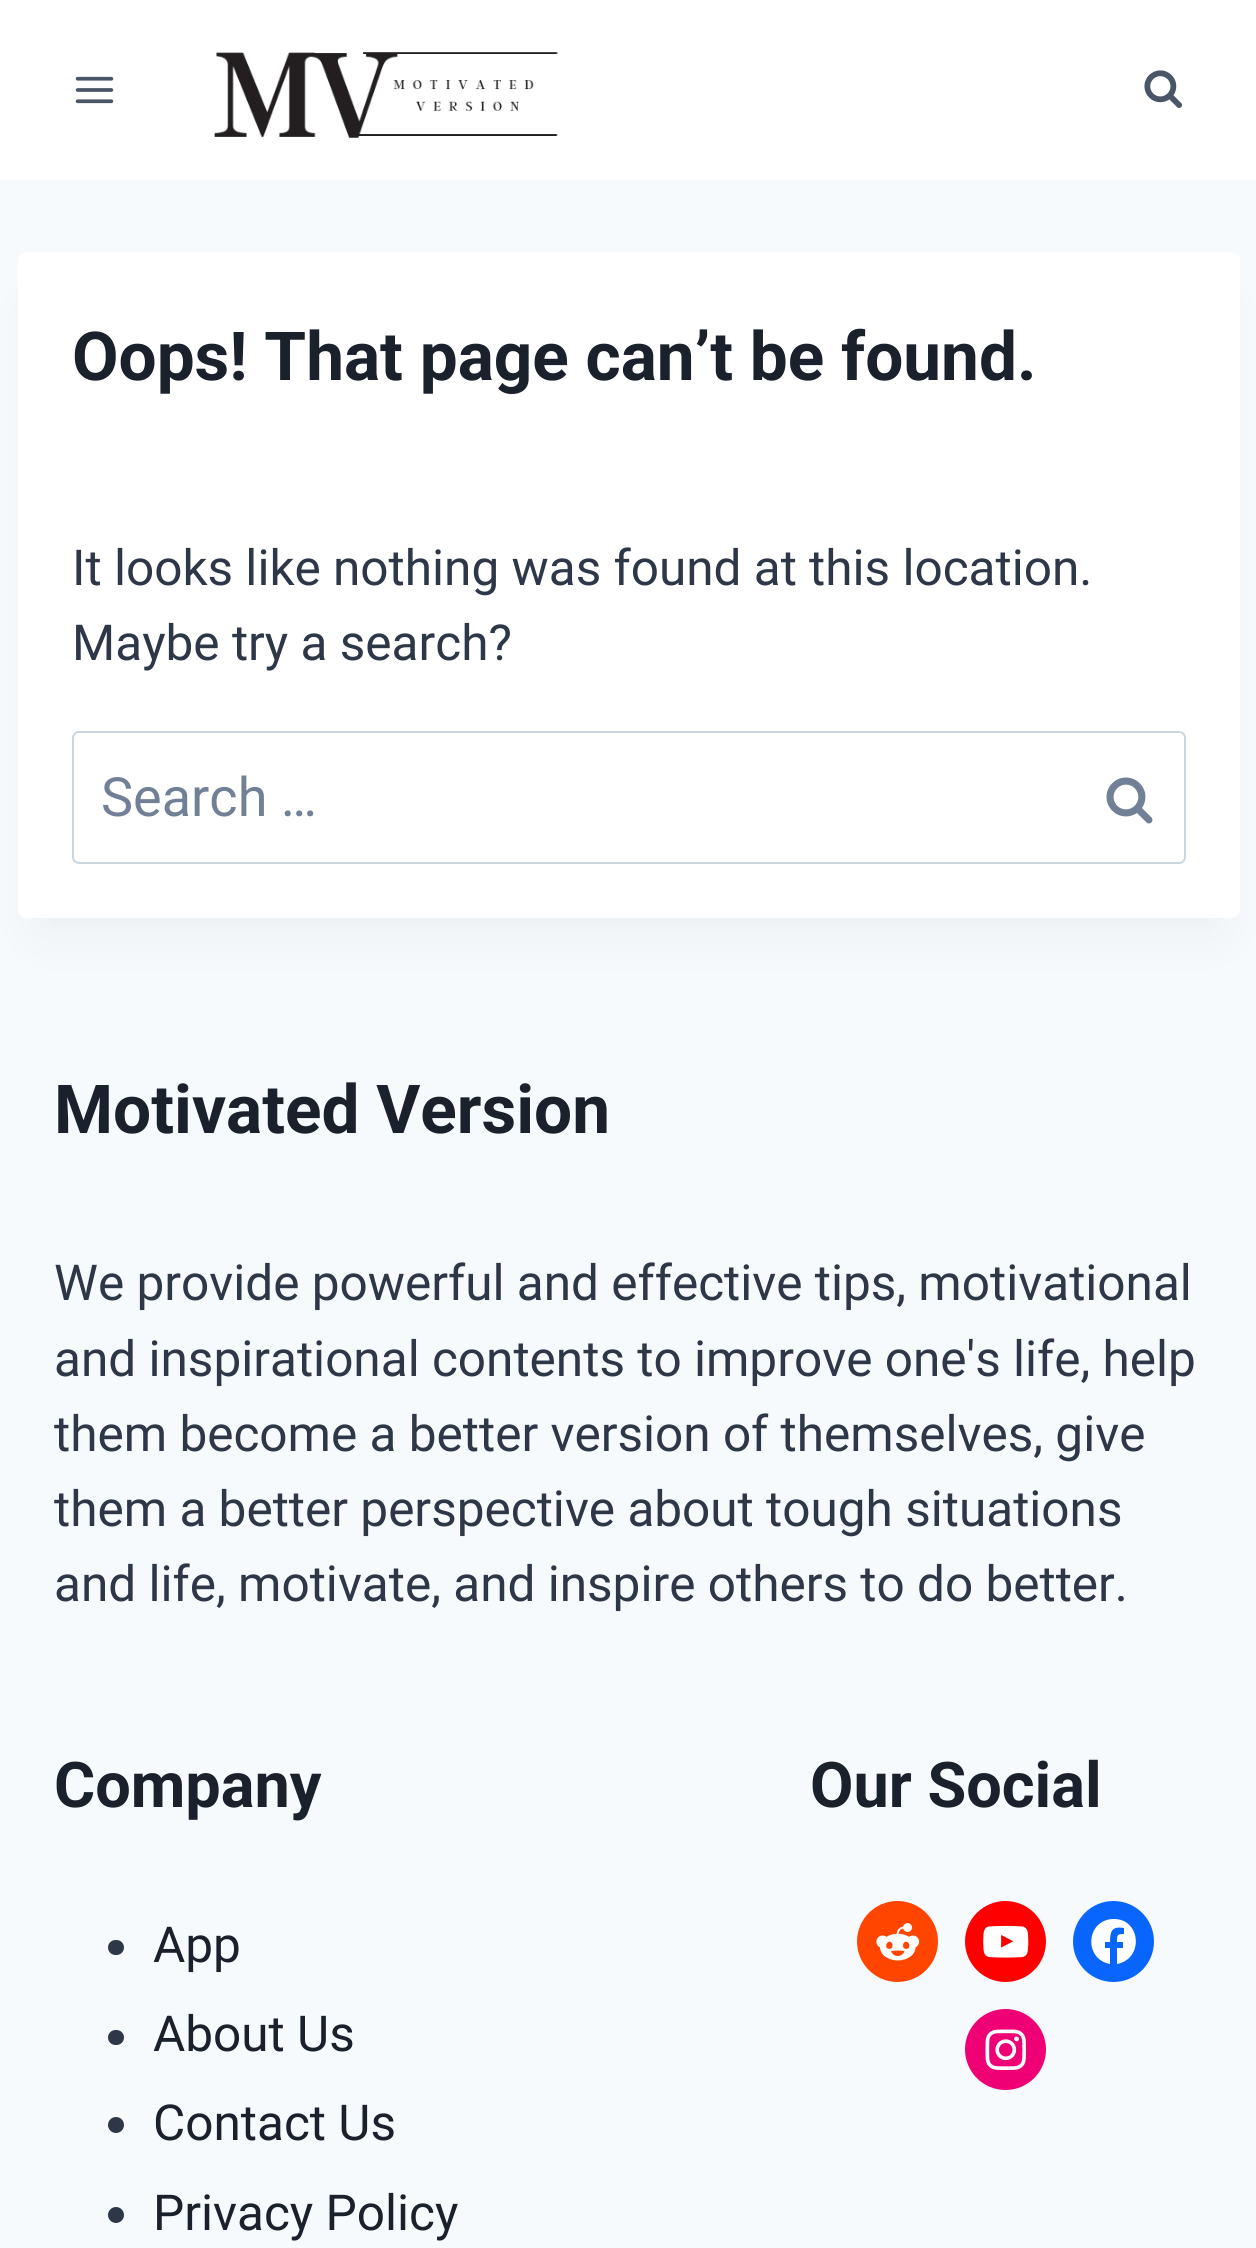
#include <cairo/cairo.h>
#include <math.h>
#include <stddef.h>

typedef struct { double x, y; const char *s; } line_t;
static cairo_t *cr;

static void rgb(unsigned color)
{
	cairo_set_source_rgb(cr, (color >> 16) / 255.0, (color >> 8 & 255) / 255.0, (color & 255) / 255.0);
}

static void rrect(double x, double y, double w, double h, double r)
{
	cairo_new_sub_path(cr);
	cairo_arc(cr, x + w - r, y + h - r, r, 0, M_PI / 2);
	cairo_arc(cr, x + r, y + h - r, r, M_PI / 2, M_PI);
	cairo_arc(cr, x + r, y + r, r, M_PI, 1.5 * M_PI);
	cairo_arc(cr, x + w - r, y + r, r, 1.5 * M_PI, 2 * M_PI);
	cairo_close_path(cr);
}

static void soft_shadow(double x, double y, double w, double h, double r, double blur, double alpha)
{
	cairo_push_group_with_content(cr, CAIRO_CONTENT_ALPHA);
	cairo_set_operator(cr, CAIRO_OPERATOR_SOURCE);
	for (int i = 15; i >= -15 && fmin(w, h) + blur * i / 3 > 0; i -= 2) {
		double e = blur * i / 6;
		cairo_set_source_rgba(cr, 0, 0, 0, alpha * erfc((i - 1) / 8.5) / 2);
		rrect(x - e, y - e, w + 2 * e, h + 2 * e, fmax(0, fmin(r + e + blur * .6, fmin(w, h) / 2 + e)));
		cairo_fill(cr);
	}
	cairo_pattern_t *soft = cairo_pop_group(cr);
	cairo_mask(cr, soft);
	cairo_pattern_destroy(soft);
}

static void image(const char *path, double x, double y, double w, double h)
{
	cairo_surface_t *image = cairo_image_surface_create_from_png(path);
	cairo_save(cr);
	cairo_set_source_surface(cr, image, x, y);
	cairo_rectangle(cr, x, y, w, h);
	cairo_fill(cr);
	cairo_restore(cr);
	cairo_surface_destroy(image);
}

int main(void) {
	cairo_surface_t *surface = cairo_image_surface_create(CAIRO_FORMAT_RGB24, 1256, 2248);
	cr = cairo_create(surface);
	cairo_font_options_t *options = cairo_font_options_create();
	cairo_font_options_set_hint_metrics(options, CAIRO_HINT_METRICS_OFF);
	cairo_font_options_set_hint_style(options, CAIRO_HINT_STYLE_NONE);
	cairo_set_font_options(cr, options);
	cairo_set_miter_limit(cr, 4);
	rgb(0xf7fafc);
	cairo_paint(cr);
	rgb(0xffffff);
	cairo_rectangle(cr, 0, 0, 1256, 180);
	cairo_fill(cr);
	image("img/1.png", 75, 76, 39, 28);
	image("img/2.png", 214, 52, 344, 86);
	image("img/3.png", 1144, 70, 38, 38);
	rgb(0x000000);
	soft_shadow(41, 308, 1176, 621, 0, 28, 0.05);
	rgb(0xffffff);
	rrect(18, 252, 1222, 666, 9);
	cairo_fill(cr);
	rrect(73, 732, 1112, 131, 6);
	rgb(0xcbd5e0);
	cairo_stroke(cr);
	image("img/4.png", 1106, 777, 47, 47);
	rgb(0x2d3748);
	rrect(108, 1940, 16, 15, 7.5);
	cairo_fill(cr);
	rrect(108, 2030, 16, 15, 7.5);
	cairo_fill(cr);
	cairo_arc(cr, 116, 2125, 8, 0, 2 * M_PI);
	cairo_fill(cr);
	cairo_arc(cr, 116, 2215, 8, 0, 2 * M_PI);
	cairo_fill(cr);
	rgb(0xff4500);
	cairo_arc(cr, 897.5, 1941.5, 40.5, 0, 2 * M_PI);
	cairo_fill(cr);
	image("img/5.png", 876, 1923, 44, 38);
	rgb(0xff0000);
	cairo_arc(cr, 1005.5, 1941.5, 40.5, 0, 2 * M_PI);
	cairo_fill(cr);
	image("img/6.png", 983, 1925, 46, 33);
	rgb(0x0866ff);
	cairo_arc(cr, 1113.5, 1941.5, 40.5, 0, 2 * M_PI);
	cairo_fill(cr);
	rgb(0xffffff);
	cairo_new_path(cr);
	cairo_move_to(cr, 1114, 1919);
	cairo_curve_to(cr, 1086, 1919, 1083, 1959, 1110, 1964);
	cairo_line_to(cr, 1110, 1948);
	cairo_line_to(cr, 1105, 1948);
	cairo_line_to(cr, 1105, 1942);
	cairo_line_to(cr, 1110, 1942);
	cairo_curve_to(cr, 1110, 1931, 1112, 1926, 1124, 1928);
	cairo_line_to(cr, 1124, 1934);
	cairo_curve_to(cr, 1117, 1934, 1117, 1935, 1117, 1942);
	cairo_line_to(cr, 1123, 1942);
	cairo_line_to(cr, 1123, 1948);
	cairo_line_to(cr, 1117, 1948);
	cairo_line_to(cr, 1117, 1964);
	cairo_curve_to(cr, 1144, 1959, 1141, 1919, 1114, 1919);
	cairo_close_path(cr);
	cairo_fill(cr);
	rgb(0xf00075);
	cairo_arc(cr, 1005.5, 2049.5, 40.5, 0, 2 * M_PI);
	cairo_fill(cr);
	image("img/7.png", 985, 2029, 41, 41);
	cairo_select_font_face(cr, "Roboto", CAIRO_FONT_SLANT_NORMAL, CAIRO_FONT_WEIGHT_BOLD);
	cairo_set_font_size(cr, 67.5);
	rgb(0x1a202c);
	cairo_move_to(cr, 72, 380);
	cairo_show_text(cr, "Oops! That page can’t be found.");
	cairo_select_font_face(cr, "Roboto", CAIRO_FONT_SLANT_NORMAL, CAIRO_FONT_WEIGHT_NORMAL);
	cairo_set_font_size(cr, 49.5);
	rgb(0x2d3748);
	cairo_move_to(cr, 72, 585);
	cairo_show_text(cr, "It looks like nothing was found at this location.");
	cairo_move_to(cr, 72, 660);
	cairo_show_text(cr, "Maybe try a search?");
	cairo_set_font_size(cr, 54);
	rgb(0x718096);
	cairo_move_to(cr, 101, 816);
	cairo_show_text(cr, "Search …");
	cairo_select_font_face(cr, "Roboto", CAIRO_FONT_SLANT_NORMAL, CAIRO_FONT_WEIGHT_BOLD);
	cairo_set_font_size(cr, 67.5);
	rgb(0x1a202c);
	cairo_move_to(cr, 54, 1133);
	cairo_show_text(cr, "Motivated Version");
	cairo_select_font_face(cr, "Roboto", CAIRO_FONT_SLANT_NORMAL, CAIRO_FONT_WEIGHT_NORMAL);
	cairo_set_font_size(cr, 49.5);
	rgb(0x2d3748);
	{
		static const line_t items[] = {
			{54, 1300, "We provide powerful and effective tips, motivational"},
			{54, 1376, "and inspirational contents to improve one's life, help"},
			{54, 1451, "them become a better version of themselves, give"},
			{54, 1526, "them a better perspective about tough situations"},
			{54, 1601, "and life, motivate, and inspire others to do better."},
		};
		for (size_t i = 0; i < sizeof items / sizeof *items; i++) {
			cairo_move_to(cr, items[i].x, items[i].y);
			cairo_show_text(cr, items[i].s);
		}
	}
	cairo_select_font_face(cr, "Roboto", CAIRO_FONT_SLANT_NORMAL, CAIRO_FONT_WEIGHT_BOLD);
	cairo_set_font_size(cr, 63);
	rgb(0x1a202c);
	cairo_move_to(cr, 54, 1807);
	cairo_show_text(cr, "Company");
	cairo_select_font_face(cr, "Roboto", CAIRO_FONT_SLANT_NORMAL, CAIRO_FONT_WEIGHT_NORMAL);
	cairo_set_font_size(cr, 49.5);
	{
		static const line_t items[] = {
			{153, 1962, "App"},
			{153, 2051, "About Us"},
			{153, 2140, "Contact Us"},
			{153, 2230, "Privacy Policy"},
		};
		for (size_t i = 0; i < sizeof items / sizeof *items; i++) {
			cairo_move_to(cr, items[i].x, items[i].y);
			cairo_show_text(cr, items[i].s);
		}
	}
	cairo_select_font_face(cr, "Roboto", CAIRO_FONT_SLANT_NORMAL, CAIRO_FONT_WEIGHT_BOLD);
	cairo_set_font_size(cr, 63);
	cairo_move_to(cr, 810, 1807);
	cairo_show_text(cr, "Our Social");
	cairo_surface_write_to_png(surface, "page.png");
	cairo_font_options_destroy(options);
	cairo_destroy(cr);
	cairo_surface_destroy(surface);
	return 0;
}
